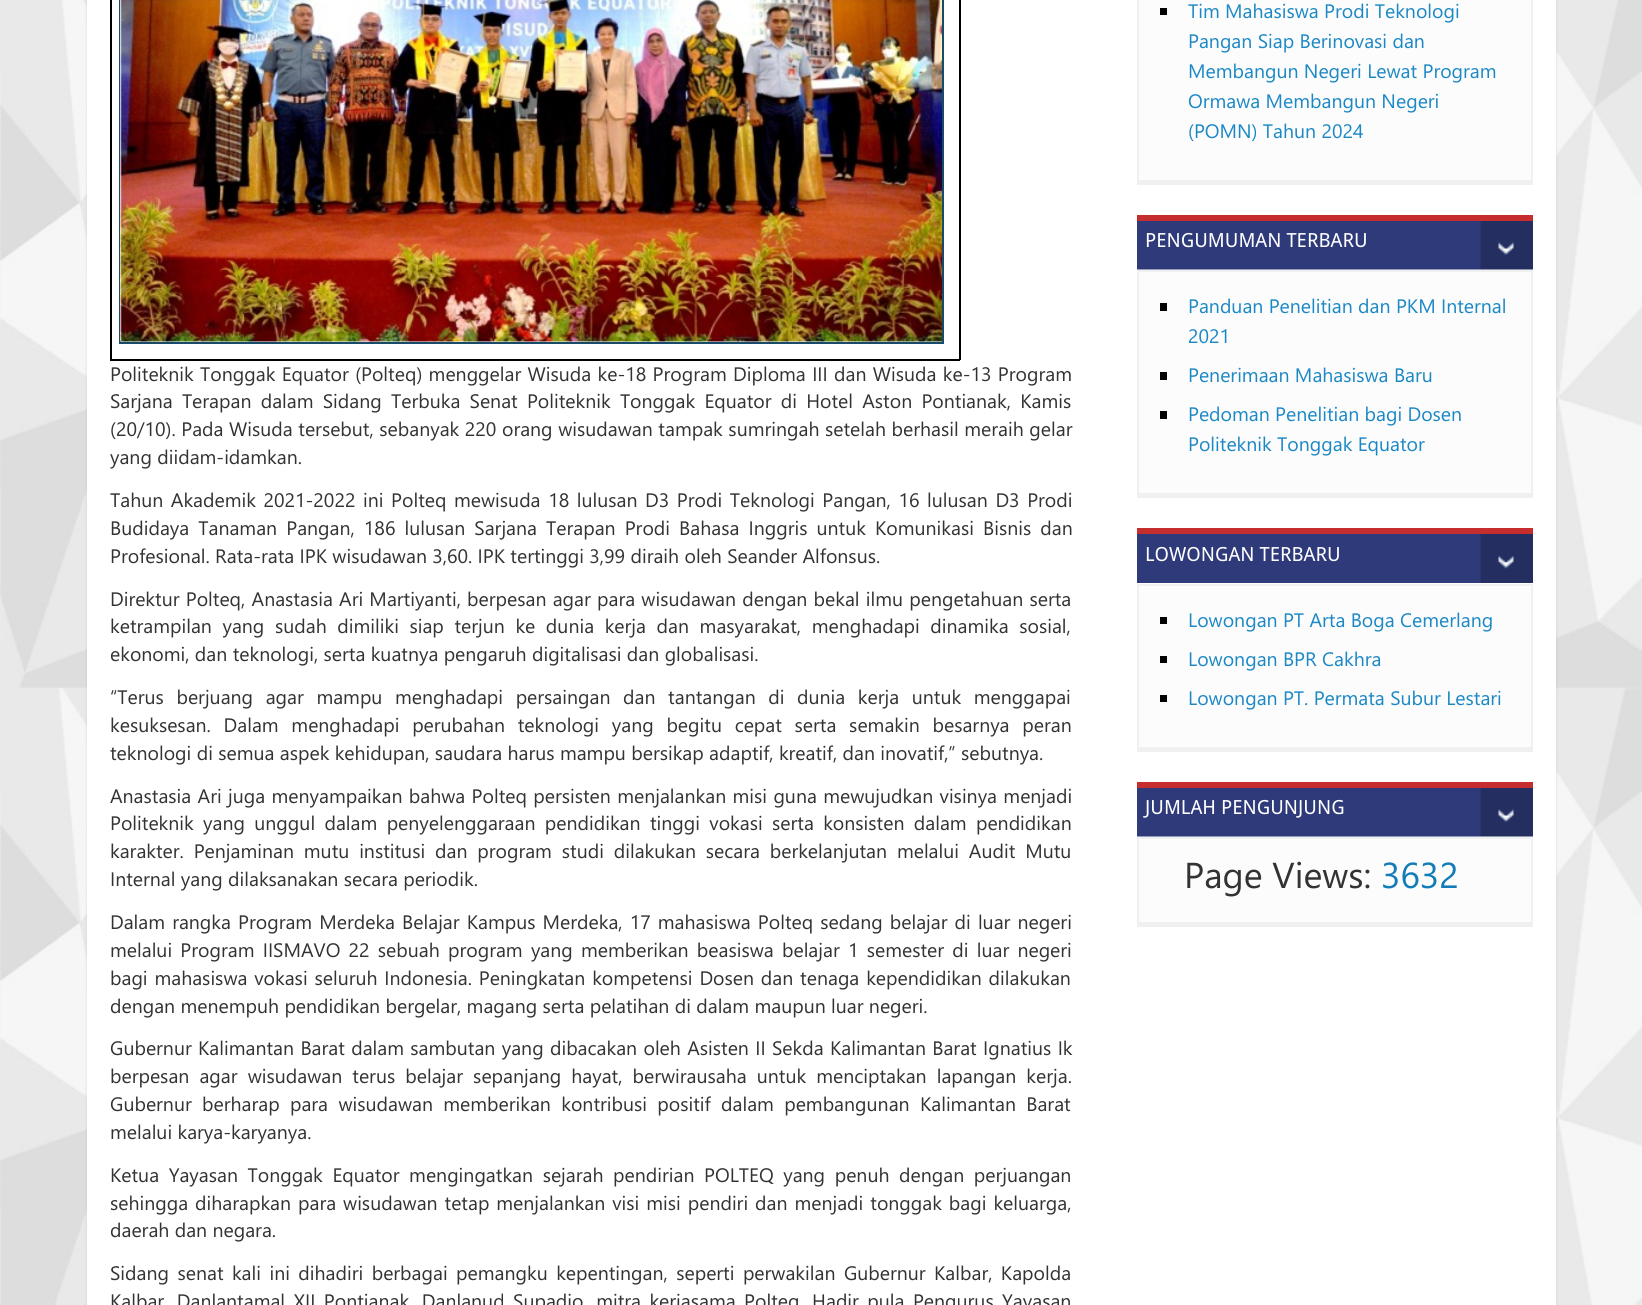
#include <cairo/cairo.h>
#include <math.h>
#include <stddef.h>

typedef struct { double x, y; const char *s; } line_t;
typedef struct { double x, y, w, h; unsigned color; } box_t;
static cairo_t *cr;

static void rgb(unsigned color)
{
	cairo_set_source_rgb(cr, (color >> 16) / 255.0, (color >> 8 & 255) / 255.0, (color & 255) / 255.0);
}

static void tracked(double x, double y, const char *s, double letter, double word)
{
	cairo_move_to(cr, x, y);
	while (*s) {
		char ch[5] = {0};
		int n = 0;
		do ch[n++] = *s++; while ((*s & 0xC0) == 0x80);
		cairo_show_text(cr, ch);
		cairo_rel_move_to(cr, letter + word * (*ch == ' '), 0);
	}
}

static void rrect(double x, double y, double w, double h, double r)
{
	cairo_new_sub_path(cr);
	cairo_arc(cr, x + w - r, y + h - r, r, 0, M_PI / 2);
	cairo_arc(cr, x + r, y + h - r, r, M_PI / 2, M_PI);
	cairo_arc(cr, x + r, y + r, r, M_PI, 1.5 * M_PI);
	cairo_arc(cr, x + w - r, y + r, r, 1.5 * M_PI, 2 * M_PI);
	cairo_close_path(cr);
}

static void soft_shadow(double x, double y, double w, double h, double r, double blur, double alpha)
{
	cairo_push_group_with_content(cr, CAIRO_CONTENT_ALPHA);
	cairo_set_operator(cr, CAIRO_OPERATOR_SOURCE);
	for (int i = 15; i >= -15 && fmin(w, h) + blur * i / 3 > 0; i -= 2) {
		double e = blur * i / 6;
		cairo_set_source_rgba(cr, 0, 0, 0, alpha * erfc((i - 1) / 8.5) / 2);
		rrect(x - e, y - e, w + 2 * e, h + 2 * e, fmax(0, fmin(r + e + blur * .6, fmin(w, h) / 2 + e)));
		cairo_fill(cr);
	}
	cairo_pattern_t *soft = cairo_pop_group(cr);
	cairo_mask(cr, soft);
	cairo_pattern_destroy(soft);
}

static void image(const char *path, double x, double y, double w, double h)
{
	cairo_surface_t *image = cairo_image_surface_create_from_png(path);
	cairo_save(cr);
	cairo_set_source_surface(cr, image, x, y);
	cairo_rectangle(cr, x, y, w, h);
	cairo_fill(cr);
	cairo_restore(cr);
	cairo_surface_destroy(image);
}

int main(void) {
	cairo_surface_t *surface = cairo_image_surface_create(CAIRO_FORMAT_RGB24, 1642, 1305);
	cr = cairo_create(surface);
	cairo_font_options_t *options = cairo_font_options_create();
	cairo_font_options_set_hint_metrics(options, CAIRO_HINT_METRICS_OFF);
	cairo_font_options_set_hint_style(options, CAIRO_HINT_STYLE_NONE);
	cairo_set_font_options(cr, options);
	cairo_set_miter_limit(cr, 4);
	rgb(0xffffff);
	cairo_paint(cr);
	image("img/1.png", 0, 0, 1642, 1305);
	rgb(0x000000);
	soft_shadow(87, -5, 1469, 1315, 0, 1.5, 0.1);
	{
		static const box_t items[] = {
			{87, 0, 1469, 1305, 0xffffff},
			{959, 0, 2, 360, 0x000000},
			{110, 359, 850, 2, 0x000000},
			{110, 0, 2, 360, 0x000000},
		};
		for (size_t i = 0; i < sizeof items / sizeof *items; i++) {
			rgb(items[i].color);
			cairo_rectangle(cr, items[i].x, items[i].y, items[i].w, items[i].h);
			cairo_fill(cr);
		}
	}
	cairo_rectangle(cr, 120, -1, 823, 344);
	rgb(0x174b69);
	cairo_stroke(cr);
	image("img/2.png", 120, 0, 822, 342);
	rgb(0xf0f0f0);
	cairo_rectangle(cr, 1137, 182, 396, 3);
	cairo_fill(cr);
	rgb(0xfcfcfc);
	cairo_rectangle(cr, 1138, -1, 394, 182);
	cairo_fill_preserve(cr);
	rgb(0xf0f0f0);
	cairo_stroke(cr);
	rgb(0x000000);
	cairo_rectangle(cr, 1160, 8, 7, 7);
	cairo_fill(cr);
	rgb(0xf0f0f0);
	cairo_rectangle(cr, 1137, 495, 396, 3);
	cairo_fill(cr);
	image("img/3.png", 1137, 221, 396, 49);
	rgb(0xc52d2f);
	cairo_rectangle(cr, 1137, 215, 396, 6);
	cairo_fill(cr);
	rgb(0xfcfcfc);
	cairo_rectangle(cr, 1138, 271, 394, 223);
	cairo_fill_preserve(cr);
	rgb(0xf0f0f0);
	cairo_stroke(cr);
	{
		static const box_t items[] = {
			{1160, 303, 7, 8, 0x000000},
			{1160, 372, 7, 8, 0x000000},
			{1160, 411, 7, 8, 0x000000},
			{1137, 749, 396, 3, 0xf0f0f0},
		};
		for (size_t i = 0; i < sizeof items / sizeof *items; i++) {
			rgb(items[i].color);
			cairo_rectangle(cr, items[i].x, items[i].y, items[i].w, items[i].h);
			cairo_fill(cr);
		}
	}
	image("img/4.png", 1137, 534, 396, 49);
	rgb(0xc52d2f);
	cairo_rectangle(cr, 1137, 528, 396, 6);
	cairo_fill(cr);
	rgb(0xfcfcfc);
	cairo_rectangle(cr, 1138, 585, 394, 163);
	cairo_fill_preserve(cr);
	rgb(0xf0f0f0);
	cairo_stroke(cr);
	{
		static const box_t items[] = {
			{1160, 617, 7, 7, 0x000000},
			{1160, 656, 7, 7, 0x000000},
			{1160, 695, 7, 7, 0x000000},
			{1137, 924, 396, 3, 0xf0f0f0},
		};
		for (size_t i = 0; i < sizeof items / sizeof *items; i++) {
			rgb(items[i].color);
			cairo_rectangle(cr, items[i].x, items[i].y, items[i].w, items[i].h);
			cairo_fill(cr);
		}
	}
	image("img/3.png", 1137, 788, 396, 49);
	rgb(0xc52d2f);
	cairo_rectangle(cr, 1137, 782, 396, 6);
	cairo_fill(cr);
	rgb(0xfcfcfc);
	cairo_rectangle(cr, 1138, 838, 394, 85);
	cairo_fill_preserve(cr);
	rgb(0xf0f0f0);
	cairo_stroke(cr);
	cairo_select_font_face(cr, "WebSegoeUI", CAIRO_FONT_SLANT_NORMAL, CAIRO_FONT_WEIGHT_NORMAL);
	cairo_set_font_size(cr, 19.5);
	rgb(0x333333);
	tracked(110, 381, "Politeknik Tonggak Equator (Polteq) menggelar Wisuda ke-18 Program Diploma III dan Wisuda ke-13 Program", 0, 1);
	tracked(110, 408, "Sarjana Terapan dalam Sidang Terbuka Senat Politeknik Tonggak Equator di Hotel Aston Pontianak, Kamis", 0, 3.9);
	tracked(110, 436, "(20/10). Pada Wisuda tersebut, sebanyak 220 orang wisudawan tampak sumringah setelah berhasil meraih gelar", 0, 0.25);
	cairo_move_to(cr, 110, 464);
	cairo_show_text(cr, "yang diidam-idamkan.");
	tracked(110, 507, "Tahun Akademik 2021-2022 ini Polteq mewisuda 18 lulusan D3 Prodi Teknologi Pangan, 16 lulusan D3 Prodi", 0, 2.25);
	tracked(110, 535, "Budidaya Tanaman Pangan, 186 lulusan Sarjana Terapan Prodi Bahasa Inggris untuk Komunikasi Bisnis dan", 0, 3.75);
	cairo_move_to(cr, 110, 563);
	cairo_show_text(cr, "Profesional. Rata-rata IPK wisudawan 3,60. IPK tertinggi 3,99 diraih oleh Seander Alfonsus.");
	tracked(110, 606, "Direktur Polteq, Anastasia Ari Martiyanti, berpesan agar para wisudawan dengan bekal ilmu pengetahuan serta", 0, 0.9);
	tracked(110, 633, "ketrampilan yang sudah dimiliki siap terjun ke dunia kerja dan masyarakat, menghadapi dinamika sosial,", 0, 5.25);
	cairo_move_to(cr, 110, 661);
	cairo_show_text(cr, "ekonomi, dan teknologi, serta kuatnya pengaruh digitalisasi dan globalisasi.");
	tracked(110, 704, "“Terus berjuang agar mampu menghadapi persaingan dan tantangan di dunia kerja untuk menggapai", 0, 7.25);
	tracked(110, 732, "kesuksesan. Dalam menghadapi perubahan teknologi yang begitu cepat serta semakin besarnya peran", 0, 7.4);
	cairo_move_to(cr, 110, 760);
	cairo_show_text(cr, "teknologi di semua aspek kehidupan, saudara harus mampu bersikap adaptif, kreatif, dan inovatif,” sebutnya.");
	tracked(110, 803, "Anastasia Ari juga menyampaikan bahwa Polteq persisten menjalankan misi guna mewujudkan visinya menjadi", 0, 1);
	tracked(110, 830, "Politeknik yang unggul dalam penyelenggaraan pendidikan tinggi vokasi serta konsisten dalam pendidikan", 0, 4);
	tracked(110, 858, "karakter. Penjaminan mutu institusi dan program studi dilakukan secara berkelanjutan melalui Audit Mutu", 0, 4.5);
	cairo_move_to(cr, 110, 886);
	cairo_show_text(cr, "Internal yang dilaksanakan secara periodik.");
	tracked(110, 929, "Dalam rangka Program Merdeka Belajar Kampus Merdeka, 17 mahasiswa Polteq sedang belajar di luar negeri", 0, 1.75);
	tracked(110, 957, "melalui Program IISMAVO 22 sebuah program yang memberikan beasiswa belajar 1 semester di luar negeri", 0, 2.9);
	tracked(110, 985, "bagi mahasiswa vokasi seluruh Indonesia. Peningkatan kompetensi Dosen dan tenaga kependidikan dilakukan", 0, 1.5);
	cairo_move_to(cr, 110, 1013);
	cairo_show_text(cr, "dengan menempuh pendidikan bergelar, magang serta pelatihan di dalam maupun luar negeri.");
	tracked(110, 1055, "Gubernur Kalimantan Barat dalam sambutan yang dibacakan oleh Asisten II Sekda Kalimantan Barat Ignatius Ik", 0, 1);
	tracked(110, 1083, "berpesan agar wisudawan terus belajar sepanjang hayat, berwirausaha untuk menciptakan lapangan kerja.", 0, 4.75);
	tracked(110, 1111, "Gubernur berharap para wisudawan memberikan kontribusi positif dalam pembangunan Kalimantan Barat", 0, 5);
	cairo_move_to(cr, 110, 1139);
	cairo_show_text(cr, "melalui karya-karyanya.");
	tracked(110, 1182, "Ketua Yayasan Tonggak Equator mengingatkan sejarah pendirian POLTEQ yang penuh dengan perjuangan", 0, 4.25);
	tracked(110, 1210, "sehingga diharapkan para wisudawan tetap menjalankan visi misi pendiri dan menjadi tonggak bagi keluarga,", 0, 1.6);
	cairo_move_to(cr, 110, 1237);
	cairo_show_text(cr, "daerah dan negara.");
	tracked(110, 1280, "Sidang senat kali ini dihadiri berbagai pemangku kepentingan, seperti perwakilan Gubernur Kalbar, Kapolda", 0, 3.1);
	tracked(110, 1308, "Kalbar, Danlantamal XII Pontianak, Danlanud Supadio, mitra kerjasama Polteq. Hadir pula Pengurus Yayasan", 0, 3.1);
	rgb(0x1b88c5);
	{
		static const line_t items[] = {
			{1188, 18, "Tim Mahasiswa Prodi Teknologi"},
			{1188, 48, "Pangan Siap Berinovasi dan"},
			{1188, 78, "Membangun Negeri Lewat Program"},
			{1188, 108, "Ormawa Membangun Negeri"},
			{1188, 138, "(POMN) Tahun 2024"},
		};
		for (size_t i = 0; i < sizeof items / sizeof *items; i++) {
			cairo_move_to(cr, items[i].x, items[i].y);
			cairo_show_text(cr, items[i].s);
		}
	}
	cairo_select_font_face(cr, "Droid Sans", CAIRO_FONT_SLANT_NORMAL, CAIRO_FONT_WEIGHT_NORMAL);
	rgb(0xffffff);
	cairo_move_to(cr, 1145, 247);
	cairo_show_text(cr, "PENGUMUMAN TERBARU");
	cairo_select_font_face(cr, "WebSegoeUI", CAIRO_FONT_SLANT_NORMAL, CAIRO_FONT_WEIGHT_NORMAL);
	rgb(0x1b88c5);
	{
		static const line_t items[] = {
			{1188, 313, "Panduan Penelitian dan PKM Internal"},
			{1188, 343, "2021"},
			{1188, 382, "Penerimaan Mahasiswa Baru"},
			{1188, 421, "Pedoman Penelitian bagi Dosen"},
			{1188, 451, "Politeknik Tonggak Equator"},
		};
		for (size_t i = 0; i < sizeof items / sizeof *items; i++) {
			cairo_move_to(cr, items[i].x, items[i].y);
			cairo_show_text(cr, items[i].s);
		}
	}
	cairo_select_font_face(cr, "Droid Sans", CAIRO_FONT_SLANT_NORMAL, CAIRO_FONT_WEIGHT_NORMAL);
	rgb(0xffffff);
	cairo_move_to(cr, 1145, 561);
	cairo_show_text(cr, "LOWONGAN TERBARU");
	cairo_select_font_face(cr, "WebSegoeUI", CAIRO_FONT_SLANT_NORMAL, CAIRO_FONT_WEIGHT_NORMAL);
	rgb(0x1b88c5);
	{
		static const line_t items[] = {
			{1188, 627, "Lowongan PT Arta Boga Cemerlang"},
			{1188, 666, "Lowongan BPR Cakhra"},
			{1188, 705, "Lowongan PT. Permata Subur Lestari"},
		};
		for (size_t i = 0; i < sizeof items / sizeof *items; i++) {
			cairo_move_to(cr, items[i].x, items[i].y);
			cairo_show_text(cr, items[i].s);
		}
	}
	cairo_select_font_face(cr, "Droid Sans", CAIRO_FONT_SLANT_NORMAL, CAIRO_FONT_WEIGHT_NORMAL);
	rgb(0xffffff);
	cairo_move_to(cr, 1145, 814);
	cairo_show_text(cr, "JUMLAH PENGUNJUNG");
	cairo_select_font_face(cr, "WebSegoeUI", CAIRO_FONT_SLANT_NORMAL, CAIRO_FONT_WEIGHT_NORMAL);
	cairo_set_font_size(cr, 36);
	rgb(0x333333);
	cairo_move_to(cr, 1184, 888);
	cairo_show_text(cr, "Page Views:");
	rgb(0x117cb7);
	cairo_move_to(cr, 1381, 888);
	cairo_show_text(cr, "3632");
	cairo_surface_write_to_png(surface, "page.png");
	cairo_font_options_destroy(options);
	cairo_destroy(cr);
	cairo_surface_destroy(surface);
	return 0;
}
